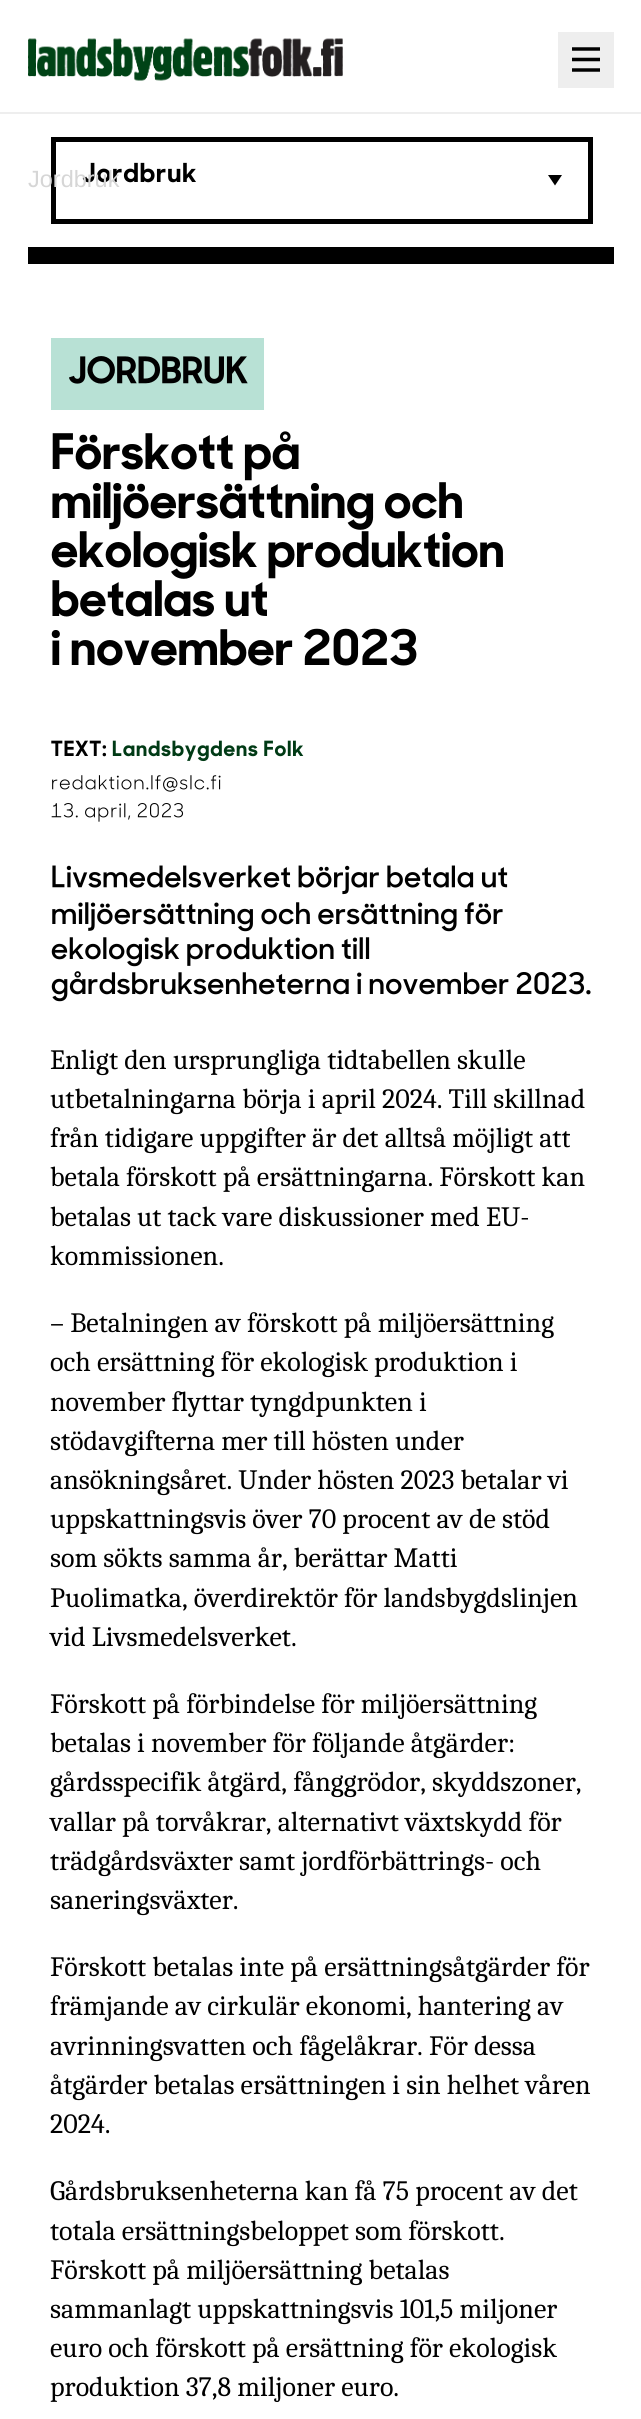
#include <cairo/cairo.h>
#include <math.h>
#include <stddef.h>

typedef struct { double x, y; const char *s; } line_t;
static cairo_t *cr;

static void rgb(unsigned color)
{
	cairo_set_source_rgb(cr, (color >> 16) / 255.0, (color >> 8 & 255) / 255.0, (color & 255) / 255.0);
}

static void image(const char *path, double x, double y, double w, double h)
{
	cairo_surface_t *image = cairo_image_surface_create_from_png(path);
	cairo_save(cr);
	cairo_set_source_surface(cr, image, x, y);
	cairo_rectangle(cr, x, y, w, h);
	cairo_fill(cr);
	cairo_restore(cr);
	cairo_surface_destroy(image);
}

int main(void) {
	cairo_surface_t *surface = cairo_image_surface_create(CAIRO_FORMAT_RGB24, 641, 2419);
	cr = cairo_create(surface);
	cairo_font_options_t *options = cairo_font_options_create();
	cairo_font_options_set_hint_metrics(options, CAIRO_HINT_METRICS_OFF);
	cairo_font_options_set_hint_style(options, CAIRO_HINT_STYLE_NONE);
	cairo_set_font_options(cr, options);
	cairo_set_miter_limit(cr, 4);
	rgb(0xffffff);
	cairo_paint(cr);
	rgb(0xeeeeee);
	cairo_rectangle(cr, 0, 112, 641, 2);
	cairo_fill(cr);
	image("img/1.png", 28, 38, 315, 43);
	cairo_rectangle(cr, 558, 32, 56, 56);
	cairo_fill(cr);
	cairo_new_path(cr);
	cairo_move_to(cr, 572, 49);
	cairo_line_to(cr, 600, 49);
	cairo_move_to(cr, 572, 59.5);
	cairo_line_to(cr, 600, 59.5);
	cairo_move_to(cr, 572, 70);
	cairo_line_to(cr, 600, 70);
	rgb(0x000000);
	cairo_set_line_width(cr, 3.5);
	cairo_set_line_join(cr, CAIRO_LINE_JOIN_ROUND);
	cairo_stroke(cr);
	cairo_rectangle(cr, 53.5, 139.5, 537, 82);
	cairo_set_line_width(cr, 5);
	cairo_set_line_join(cr, CAIRO_LINE_JOIN_MITER);
	cairo_stroke(cr);
	image("img/2.png", 82, 162, 114, 21);
	cairo_new_path(cr);
	cairo_move_to(cr, 548, 175);
	cairo_line_to(cr, 562, 175);
	cairo_line_to(cr, 555, 185.5);
	cairo_close_path(cr);
	cairo_fill(cr);
	cairo_rectangle(cr, 28, 247, 586, 17);
	cairo_fill(cr);
	rgb(0xb8e1d5);
	cairo_rectangle(cr, 51, 338, 213, 72);
	cairo_fill(cr);
	image("img/3.png", 69, 356, 179, 28);
	image("img/4.png", 52, 431, 247, 50);
	image("img/5.png", 52, 482, 410, 48);
	image("img/6.png", 51, 531, 452, 48);
	image("img/7.png", 52, 580, 215, 37);
	image("img/8.png", 51, 628, 366, 38);
	image("img/9.png", 51, 740, 56, 17);
	image("img/10.png", 112, 740, 192, 22);
	image("img/11.png", 52, 775, 169, 17);
	image("img/12.png", 51, 803, 133, 19);
	image("img/13.png", 52, 865, 456, 30);
	image("img/14.png", 52, 902, 451, 30);
	image("img/15.png", 51, 937, 319, 30);
	image("img/16.png", 51, 971, 540, 31);
	cairo_select_font_face(cr, "Liberation Sans", CAIRO_FONT_SLANT_NORMAL, CAIRO_FONT_WEIGHT_NORMAL);
	cairo_set_font_size(cr, 23.5);
	rgb(0xd6d6d6);
	cairo_move_to(cr, 28, 187);
	cairo_show_text(cr, "Jordbruk");
	cairo_select_font_face(cr, "Caladea", CAIRO_FONT_SLANT_NORMAL, CAIRO_FONT_WEIGHT_NORMAL);
	cairo_set_font_size(cr, 28);
	rgb(0x000000);
	{
		static const line_t items[] = {
			{50, 1069, "Enligt den ursprungliga tidtabellen skulle"},
			{50, 1108, "utbetalningarna börja i april 2024. Till skillnad"},
			{50, 1147, "från tidigare uppgifter är det alltså möjligt att"},
			{50, 1186, "betala förskott på ersättningarna. Förskott kan"},
			{50, 1226, "betalas ut tack vare diskussioner med EU-"},
			{50, 1265, "kommissionen."},
			{50, 1332, "– Betalningen av förskott på miljöersättning"},
			{50, 1371, "och ersättning för ekologisk produktion i"},
			{50, 1411, "november flyttar tyngdpunkten i"},
			{50, 1450, "stödavgifterna mer till hösten under"},
			{50, 1489, "ansökningsåret. Under hösten 2023 betalar vi"},
			{50, 1528, "uppskattningsvis över 70 procent av de stöd"},
			{50, 1567, "som sökts samma år, berättar Matti"},
			{50, 1607, "Puolimatka, överdirektör för landsbygdslinjen"},
			{50, 1646, "vid Livsmedelsverket."},
			{50, 1713, "Förskott på förbindelse för miljöersättning"},
			{50, 1752, "betalas i november för följande åtgärder:"},
			{50, 1791, "gårdsspecifik åtgärd, fånggrödor, skyddszoner,"},
			{50, 1831, "vallar på torvåkrar, alternativt växtskydd för"},
			{50, 1870, "trädgårdsväxter samt jordförbättrings- och"},
			{50, 1909, "saneringsväxter."},
			{50, 1976, "Förskott betalas inte på ersättningsåtgärder för"},
			{50, 2015, "främjande av cirkulär ekonomi, hantering av"},
			{50, 2055, "avrinningsvatten och fågelåkrar. För dessa"},
			{50, 2094, "åtgärder betalas ersättningen i sin helhet våren"},
			{50, 2133, "2024."},
			{50, 2200, "Gårdsbruksenheterna kan få 75 procent av det"},
			{50, 2240, "totala ersättningsbeloppet som förskott."},
			{50, 2279, "Förskott på miljöersättning betalas"},
			{50, 2318, "sammanlagt uppskattningsvis 101,5 miljoner"},
			{50, 2357, "euro och förskott på ersättning för ekologisk"},
			{50, 2396, "produktion 37,8 miljoner euro."},
		};
		for (size_t i = 0; i < sizeof items / sizeof *items; i++) {
			cairo_move_to(cr, items[i].x, items[i].y);
			cairo_show_text(cr, items[i].s);
		}
	}
	cairo_surface_write_to_png(surface, "page.png");
	cairo_font_options_destroy(options);
	cairo_destroy(cr);
	cairo_surface_destroy(surface);
	return 0;
}
